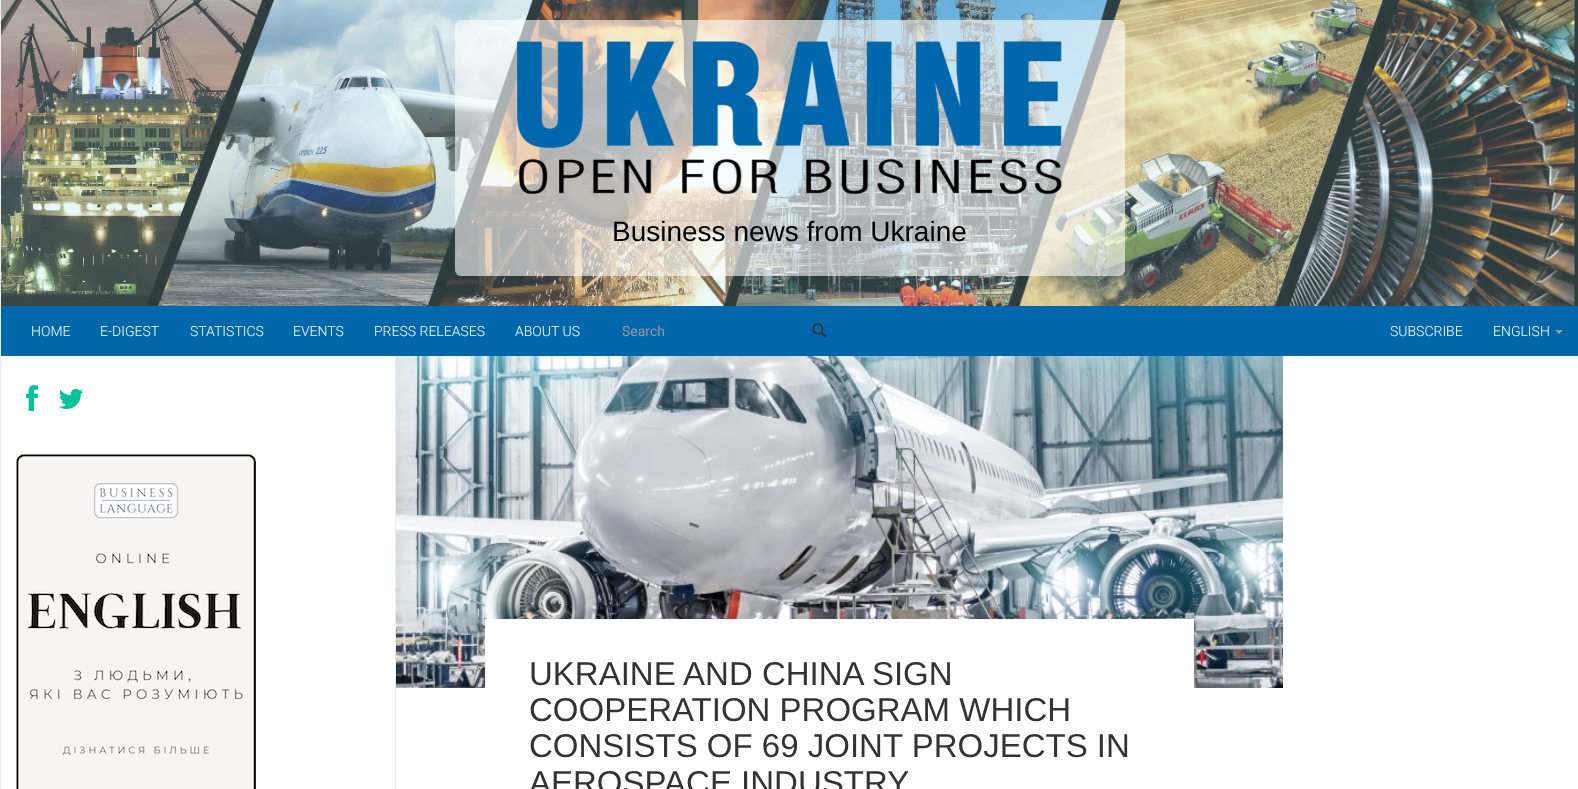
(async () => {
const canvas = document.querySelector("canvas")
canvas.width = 1578
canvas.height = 789
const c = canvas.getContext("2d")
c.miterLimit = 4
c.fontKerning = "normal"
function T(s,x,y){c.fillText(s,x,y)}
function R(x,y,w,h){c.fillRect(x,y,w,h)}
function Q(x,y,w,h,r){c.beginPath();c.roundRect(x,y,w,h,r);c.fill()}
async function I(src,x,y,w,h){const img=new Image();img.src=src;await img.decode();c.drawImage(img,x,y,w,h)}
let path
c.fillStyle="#fff"
R(0,0,1578,789)
c.fillStyle="#eee"
R(0,0,1,789)
await I("1.png",1,0,1577,306)
c.fillStyle="#ffffff99"
Q(455,20,670,256,6)
await I("2.png",516,41,546,153)
c.font="28px Liberation Sans"
c.fillStyle="#000"
T("Business news from Ukraine",612,241)
c.fillStyle="#0067ab"
R(1,306,1577,50)
c.font="300 14px Roboto"
c.fillStyle="#fff"
T("HOME",31,336)
T("E-DIGEST",100,336)
T("STATISTICS",190,336)
T("EVENTS",293,336)
T("PRESS RELEASES",374,336)
T("ABOUT US",515,336)
c.font="14px Roboto"
c.fillStyle="#999"
T("Search",622,336)
await I("3.png",812,323,15,15)
c.font="300 14px Roboto"
c.fillStyle="#fff"
T("SUBSCRIBE",1390,336)
T("ENGLISH",1493,336)
c.fillStyle="#999"
path = new Path2D("M1555 330h8l-4 4z")
c.fill(path)
await I("4.png",26,385,12,26)
await I("5.png",58,389,26,20)
await I("6.png",16,454,240,335)
c.fillStyle="#eee"
R(395,356,1,433)
await I("7.png",396,356,887,332)
c.fillStyle="#fff"
R(485,619,709,69)
c.font="33px Liberation Sans"
c.fillStyle="#333"
T("UKRAINE AND CHINA SIGN",529,685)
T("COOPERATION PROGRAM WHICH",529,721)
T("CONSISTS OF 69 JOINT PROJECTS IN",529,757)
T("AEROSPACE INDUSTRY",529,794)
})()
